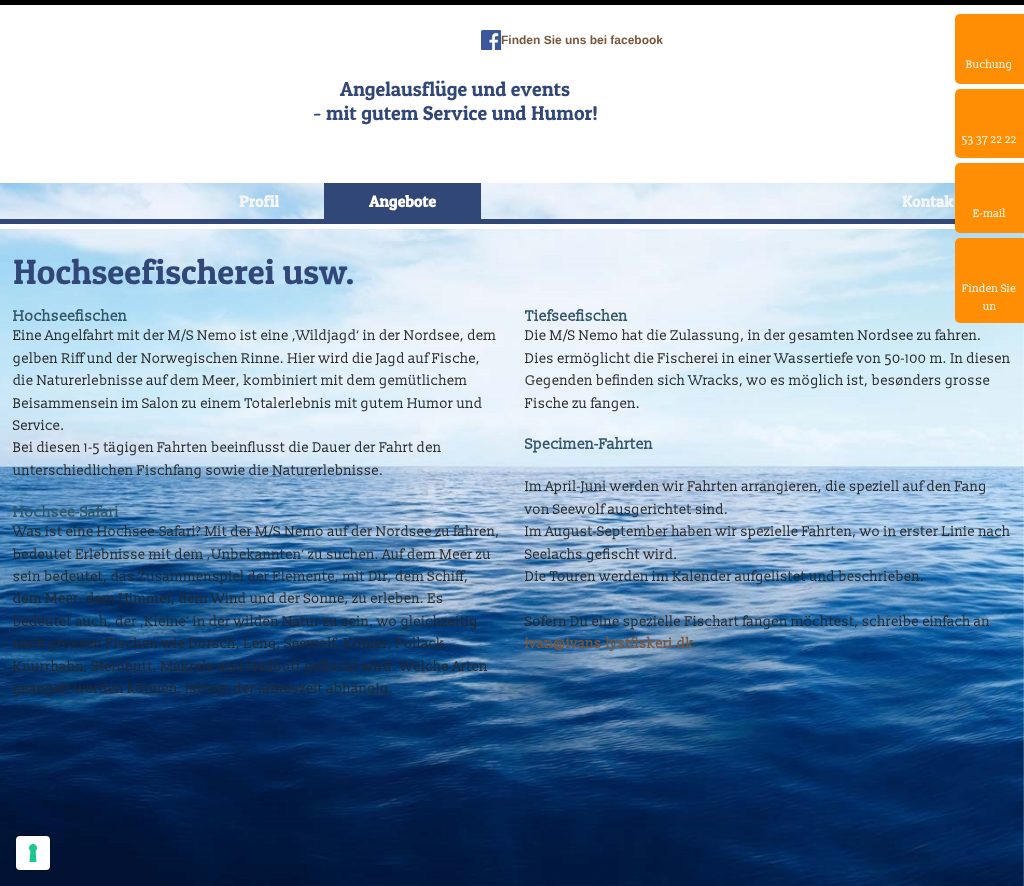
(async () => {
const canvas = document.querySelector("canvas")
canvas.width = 1024
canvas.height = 886
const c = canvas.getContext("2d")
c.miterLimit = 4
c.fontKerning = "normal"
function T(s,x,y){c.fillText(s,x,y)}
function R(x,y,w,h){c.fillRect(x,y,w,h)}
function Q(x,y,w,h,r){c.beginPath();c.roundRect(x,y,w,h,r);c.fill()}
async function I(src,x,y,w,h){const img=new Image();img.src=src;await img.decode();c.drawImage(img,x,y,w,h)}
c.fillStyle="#fff"
R(0,0,1024,886)
await I("1.png",0,183,1024,703)
c.fillStyle="#000"
R(0,0,1024,5)
await I("2.png",481,30,20,20)
c.font="bold 12px Liberation Sans"
c.fillStyle="#7a563a"
T("Finden Sie uns bei facebook",501,44)
c.font="20px Patua One"
c.fillStyle="#314777"
T("Angelausflüge und events",340,96)
T("- mit gutem Service und Humor!",313,120)
c.fillStyle="#ff8e05"
c.beginPath()
c.roundRect(955,14,69,70,[5,0,0,5])
c.fill()
c.font="11px 'Slabo 13px'"
c.fillStyle="#fff"
T("Buchung",966,68)
c.fillStyle="#ff8e05"
c.beginPath()
c.roundRect(955,89,69,69,[5,0,0,5])
c.fill()
c.fillStyle="#fff"
T("53 37 22 22",962,143)
R(0,224,956,5)
c.fillStyle="#ff8e05"
c.beginPath()
c.roundRect(955,163,69,70,[5,0,0,5])
c.fill()
c.fillStyle="#fff"
T("E-mail",973,217)
c.fillStyle="#ff8e05"
c.beginPath()
c.roundRect(955,238,69,85,[5,0,0,5])
c.fill()
c.fillStyle="#fff"
T("Finden Sie",962,292)
T("un",983,310)
c.fillStyle="#314777"
R(0,219,955,5)
c.font="bold 16px Patua One"
c.fillStyle="#f5f5f5"
T("Profil",239,207)
c.fillStyle="#314777"
R(324,183,157,36)
c.fillStyle="#fff"
T("Angebote",369,207)
c.fillStyle="#f5f5f5"
T("Kontak",902,207)
c.font="35px Patua One"
c.fillStyle="#314777"
T("Hochseefischerei usw.",13,284)
c.font="bold 15px 'Slabo 13px'"
c.fillStyle="#335768"
T("Hochseefischen",13,321)
c.font="14px 'Slabo 13px'"
c.fillStyle="#282828"
T("Eine Angelfahrt mit der M/S Nemo ist eine ‚Wildjagd‘ in der Nordsee, dem",13,340)
T("gelben Riff und der Norwegischen Rinne. Hier wird die Jagd auf Fische,",13,363)
T("die Naturerlebnisse auf dem Meer, kombiniert mit dem gemütlichem",13,385)
T("Beisammensein im Salon zu einem Totalerlebnis mit gutem Humor und",13,408)
T("Service.",13,430)
T("Bei diesen 1-5 tägigen Fahrten beeinflusst die Dauer der Fahrt den",13,452)
T("unterschiedlichen Fischfang sowie die Naturerlebnisse.",13,475)
c.font="bold 15px 'Slabo 13px'"
c.fillStyle="#335768"
T("Hochsee-Safari",13,517)
c.font="14px 'Slabo 13px'"
c.fillStyle="#282828"
T("Was ist eine Hochsee-Safari? Mit der M/S Nemo auf der Nordsee zu fahren,",13,536)
T("bedeutet Erlebnisse mit dem ‚Unbekannten‘ zu suchen. Auf dem Meer zu",13,559)
T("sein bedeutet, das Zusammenspiel der Elemente, mit Dir, dem Schiff,",13,581)
T("dem Meer, dem Himmel, dem Wind und der Sonne, zu erleben. Es",13,603)
T("bedeutet auch, der ‚Kleine‘ in der wilden Natur zu sein, wo gleichzeitig",13,626)
T("nach grossen Fischen wie Dorsch, Leng, Seewolf, Köhler, Pollack,",13,648)
T("Knurrhahn, Steinbutt, Makrele und Heilbutt gefischt wird. Welche Arten",13,671)
T("geangelt werden können, ist von der Jahreszeit abhängig.",13,693)
c.font="bold 15px 'Slabo 13px'"
c.fillStyle="#335768"
T("Tiefseefischen",525,321)
c.font="14px 'Slabo 13px'"
c.fillStyle="#282828"
T("Die M/S Nemo hat die Zulassung, in der gesamten Nordsee zu fahren.",525,340)
T("Dies ermöglicht die Fischerei in einer Wassertiefe von 50-100 m. In diesen",525,363)
T("Gegenden befinden sich Wracks, wo es möglich ist, besønders grosse",525,385)
T("Fische zu fangen.",525,408)
c.font="bold 15px 'Slabo 13px'"
c.fillStyle="#335768"
T("Specimen-Fahrten",525,449)
c.font="14px 'Slabo 13px'"
c.fillStyle="#282828"
T("Im April-Juni werden wir Fahrten arrangieren, die speziell auf den Fang",525,491)
T("von Seewolf ausgerichtet sind.",525,514)
T("Im August-September haben wir spezielle Fahrten, wo in erster Linie nach",525,536)
T("Seelachs gefischt wird.",525,559)
T("Die Touren werden im Kalender aufgelistet und beschrieben.",525,581)
T("Sofern Du eine spezielle Fischart fangen möchtest, schreibe einfach an",525,626)
c.font="bold 14px 'Slabo 13px'"
c.fillStyle="#7a563a"
T("ivan@ivans-lystfiskeri.dk",525,648)
c.beginPath()
c.roundRect(15.5,835.5,35,35,4.5)
c.strokeStyle="#00000026"
c.stroke()
c.fillStyle="#fff"
Q(16,836,34,34,4)
await I("3.png",29,844,8,18)
})()
